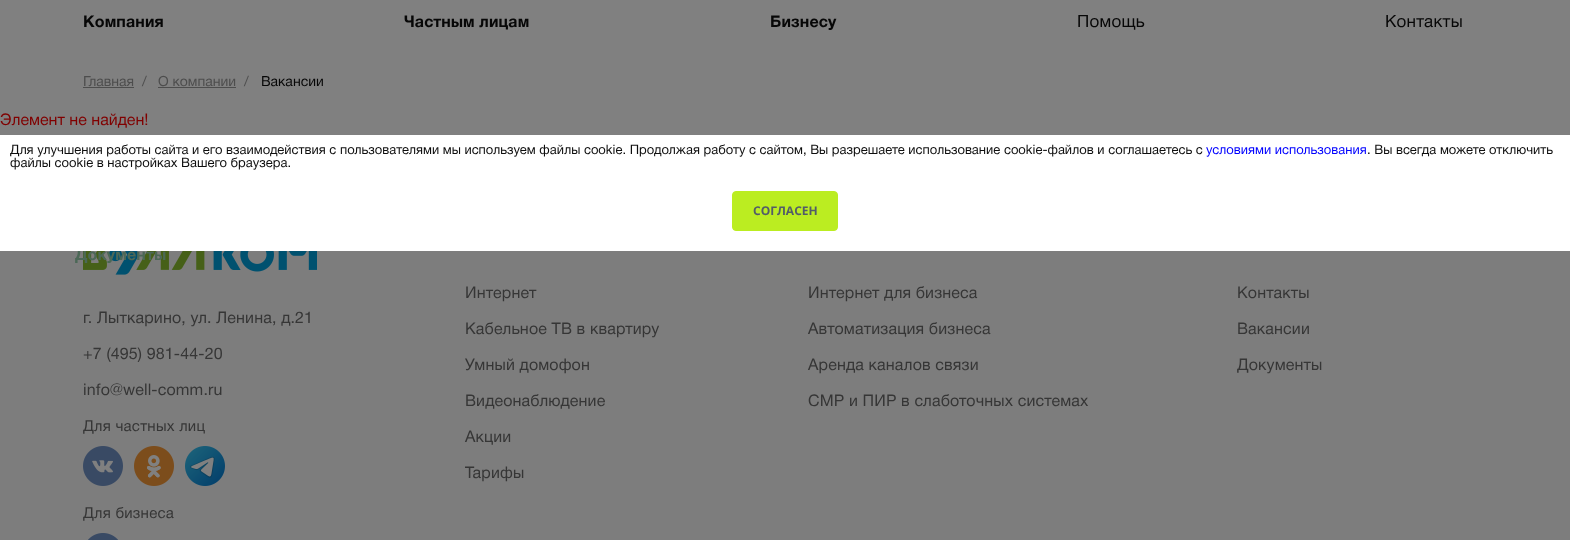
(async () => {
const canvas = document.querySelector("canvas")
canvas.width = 1570
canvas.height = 540
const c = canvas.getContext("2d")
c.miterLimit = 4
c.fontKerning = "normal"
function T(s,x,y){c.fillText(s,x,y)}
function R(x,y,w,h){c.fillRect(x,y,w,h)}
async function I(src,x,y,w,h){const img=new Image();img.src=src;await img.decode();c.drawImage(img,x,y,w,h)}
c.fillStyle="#808080"
R(0,0,1570,540)
c.letterSpacing="0.15px"
c.font="bold 16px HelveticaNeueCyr"
c.fillStyle="#070707"
T("Компания",83,27)
c.fillStyle="#7d7d7d"
R(0,251,1570,289)
await I("1.png",83,251,234,24)
c.fillStyle="#4c6857"
T("Документы",75,260)
c.fillStyle="#070707"
T("Частным лицам",404,27)
T("Бизнесу",770,27)
c.letterSpacing="0.25px"
c.font="17px HelveticaNeueCyr"
T("Помощь",1077,27)
T("Контакты",1385,27)
c.letterSpacing="0px"
c.font="14px HelveticaNeueCyr"
c.fillStyle="#4d4d4d"
T("Главная",83,86)
R(83,87,51,1)
T("/",142,86)
T("О компании",158,86)
R(158,87,78,1)
T("/",244,86)
c.fillStyle="#070707"
T("Вакансии",261,86)
c.font="16px HelveticaNeueCyr"
c.fillStyle="#800000"
T("Элемент не найден!",0,125)
c.letterSpacing="0.15px"
c.fillStyle="#363636"
T("г. Лыткарино, ул. Ленина, д.21",83,323)
T("+7 (495) 981-44-20",83,359)
T("info@well-comm.ru",83,395)
c.letterSpacing="0.25px"
c.font="15px HelveticaNeueCyr"
T("Для частных лиц",83,431)
await I("2.png",83,446,40,40)
await I("3.png",134,446,40,40)
await I("4.png",185,446,40,40)
T("Для бизнеса",83,518)
await I("5.png",88,533,30,7)
c.letterSpacing="0.15px"
c.font="16px HelveticaNeueCyr"
T("Интернет",465,298)
T("Кабельное ТВ в квартиру",465,334)
T("Умный домофон",465,370)
T("Видеонаблюдение",465,406)
T("Акции",465,442)
T("Тарифы",465,478)
T("Интернет для бизнеса",808,298)
T("Автоматизация бизнеса",808,334)
T("Аренда каналов связи",808,370)
T("СМР и ПИР в слаботочных системах",808,406)
T("Контакты",1237,298)
T("Вакансии",1237,334)
T("Документы",1237,370)
c.fillStyle="#fff"
R(0,135,1570,116)
c.letterSpacing="0px"
c.font="13px HelveticaNeueCyr"
c.fillStyle="#0e0e0e"
T("Для улучшения работы сайта и его взаимодействия с пользователями мы используем файлы cookie. Продолжая работу с сайтом, Вы разрешаете использование cookie-файлов и соглашаетесь с",10,154)
c.fillStyle="#00f"
T("условиями использования",1206,154)
c.fillStyle="#0e0e0e"
T(". Вы всегда можете отключить",1367,154)
T("файлы cookie в настройках Вашего браузера.",10,167)
c.fillStyle="#bbed21"
c.beginPath()
c.roundRect(732.5,191.5,105,39,3.5)
c.fill()
c.strokeStyle="#bbed21"
c.stroke()
c.font="bold 12px Open Sans"
c.fillStyle="#525c69"
T("СОГЛАСЕН",753,215)
})()
